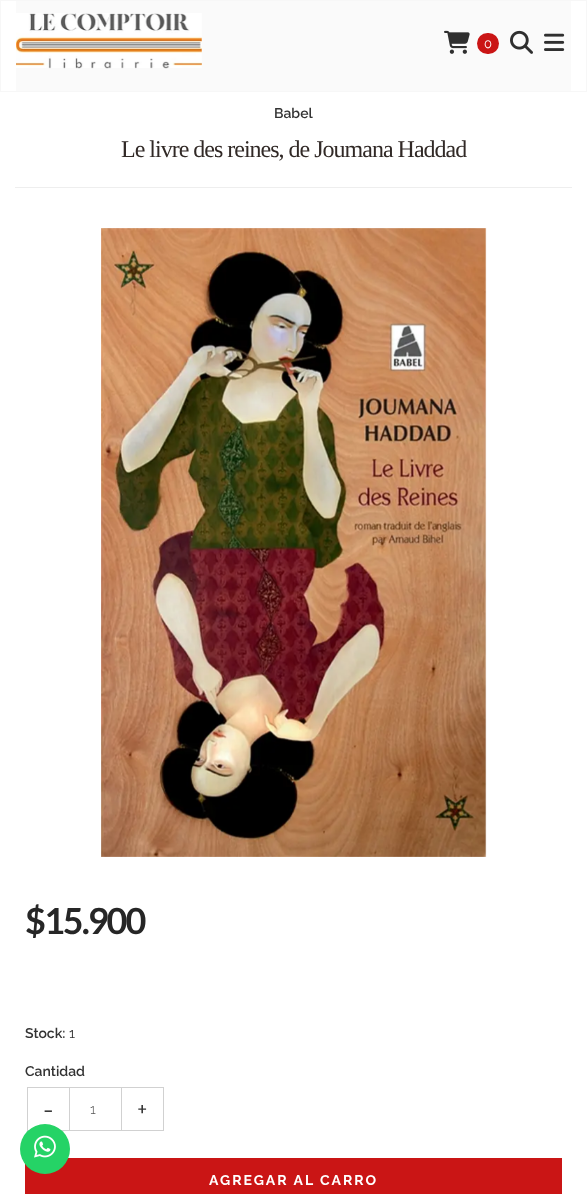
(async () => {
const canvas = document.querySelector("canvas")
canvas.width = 587
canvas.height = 1194
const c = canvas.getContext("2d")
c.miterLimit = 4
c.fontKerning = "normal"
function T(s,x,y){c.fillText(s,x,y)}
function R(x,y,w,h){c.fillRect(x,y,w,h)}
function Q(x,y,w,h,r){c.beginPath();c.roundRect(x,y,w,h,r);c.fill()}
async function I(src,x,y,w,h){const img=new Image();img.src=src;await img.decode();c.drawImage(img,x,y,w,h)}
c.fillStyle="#fff"
R(0,0,587,1194)
c.strokeStyle="#f7f7f7"
c.strokeRect(.5,.5,586,91)
c.fillStyle="#fafafa"
R(16,1,555,90)
await I("1.png",16,13,186,56)
await I("2.png",444,30,26,24)
c.fillStyle="#ca1515"
Q(477,33,22,21,10.5)
c.font="13px Raleway"
c.fillStyle="#fff"
T("0",484,48)
await I("3.png",510,30,23,24)
await I("4.png",544,33,21,18)
c.fillStyle="#eee"
R(15,187,557,1)
c.font="600 14px Raleway"
c.fillStyle="#333"
T("Babel",274,118)
c.letterSpacing="-1px"
c.font="24px Liberation Serif"
c.fillStyle="#312926"
T("Le livre des reines, de Joumana Haddad",121,157)
await I("5.png",101,228,386,629)
c.letterSpacing="-2px"
c.font="bold 36px Lato"
c.fillStyle="#262626"
T("$15.900",25,934)
c.letterSpacing="0px"
c.font="600 14px Raleway"
c.fillStyle="#333"
T("Stock:",25,1038)
c.font="14px Raleway"
T("1",69,1038)
c.font="600 14px Raleway"
T("Cantidad",25,1076)
c.strokeStyle="#d1d1d1"
c.strokeRect(69.5,1087.5,94,43)
c.strokeRect(27.5,1087.5,42,43)
c.font="25px Raleway"
T("-",43,1118)
c.font="300 14px Raleway"
c.fillStyle="#555"
T("1",90,1114)
c.strokeRect(121.5,1087.5,42,43)
c.font="25px Raleway"
c.fillStyle="#333"
T("+",137,1118)
c.fillStyle="#ca1515"
R(25,1158,537,36)
c.letterSpacing="2px"
c.font="bold 14px Raleway"
c.fillStyle="#fff"
T("AGREGAR AL CARRO",209,1185)
c.fillStyle="#25d366"
c.beginPath()
c.arc(45,1149,25,0,7)
c.fill()
await I("6.png",34,1135,22,23)
})()
